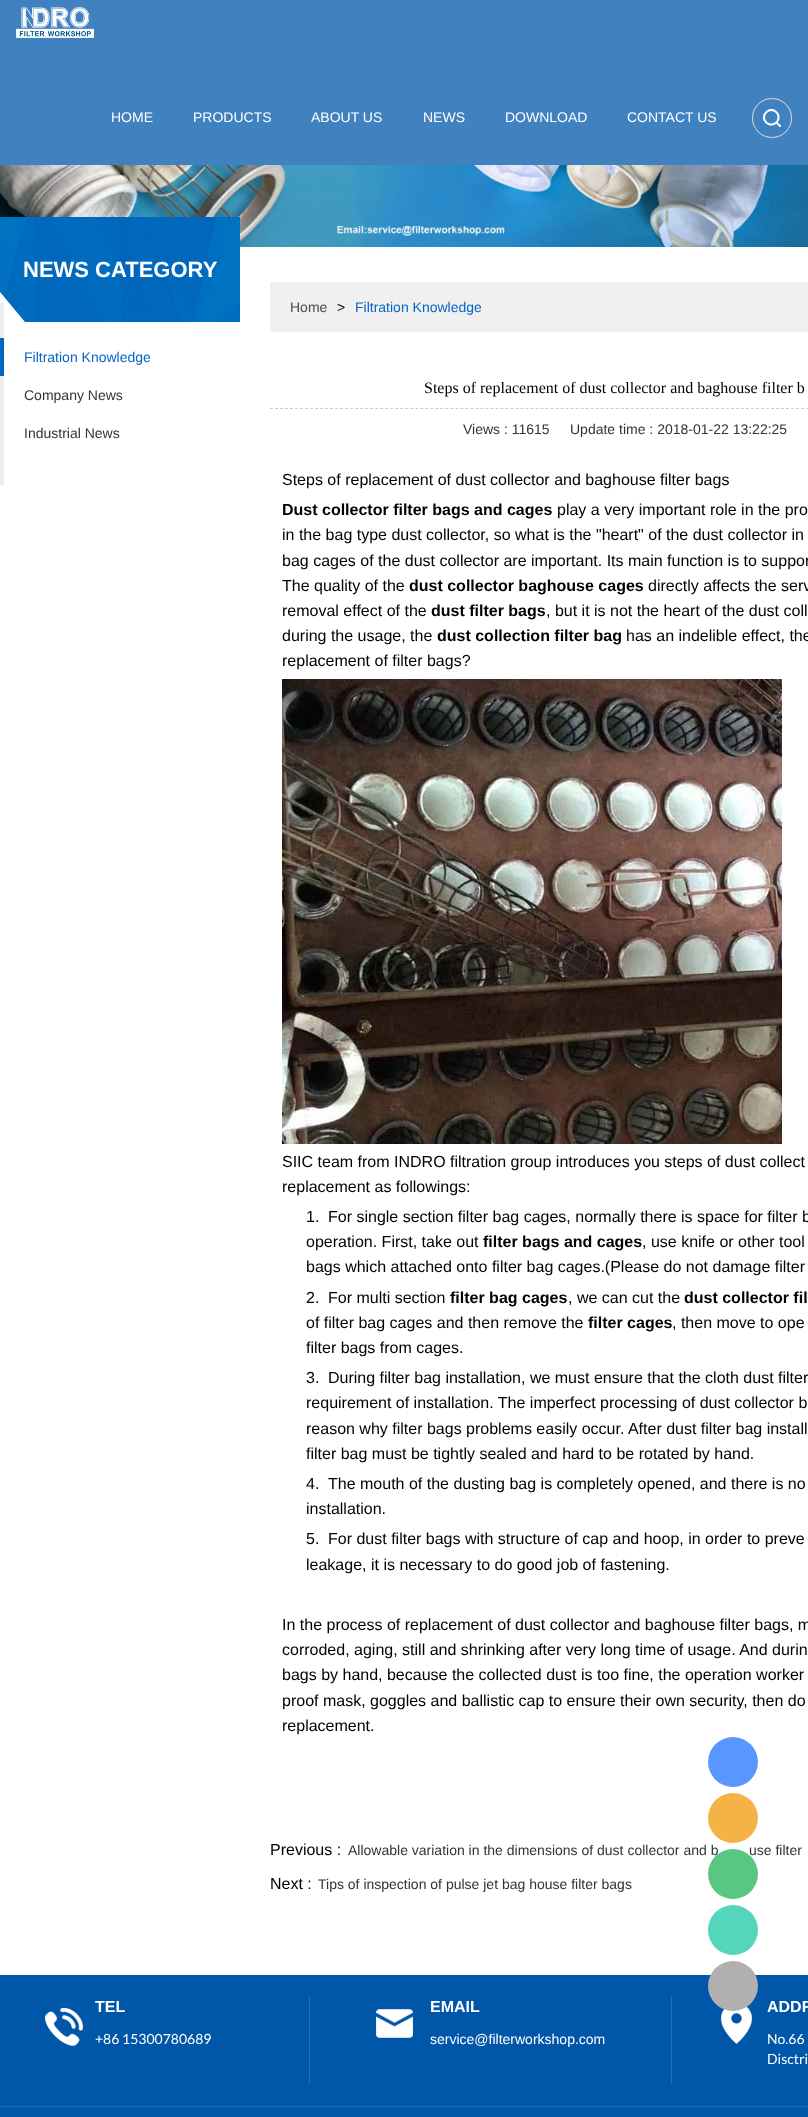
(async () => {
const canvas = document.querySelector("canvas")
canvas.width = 808
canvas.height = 2117
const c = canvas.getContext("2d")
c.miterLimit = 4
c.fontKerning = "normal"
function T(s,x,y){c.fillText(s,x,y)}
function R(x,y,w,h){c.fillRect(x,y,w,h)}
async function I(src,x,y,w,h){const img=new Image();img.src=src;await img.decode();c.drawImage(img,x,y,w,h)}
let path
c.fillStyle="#fff"
R(0,0,808,2117)
c.fillStyle="#4081bf"
R(0,0,808,165)
await I("1.png",16,7,78,31)
c.font="14px Liberation Sans"
c.fillStyle="#fff"
T("HOME",111,122)
T("PRODUCTS",193,122)
T("ABOUT US",311,122)
T("NEWS",423,122)
T("DOWNLOAD",505,122)
T("CONTACT US",627,122)
await I("2.png",763,109,18,18)
c.beginPath()
c.arc(772,118,19.5,0,7)
c.strokeStyle="#95b5d3"
c.stroke()
c.beginPath()
c.arc(772,118,19.5,0,7)
c.strokeStyle="#ccc"
c.stroke()
await I("3.png",763,109,18,18)
await I("4.png",0,165,808,82)
c.fillStyle="#ededed"
R(0,303,4,182)
await I("5.png",0,217,240,105)
c.font="bold 22px Liberation Sans"
c.fillStyle="#fff"
T("NEWS CATEGORY",23,277)
c.fillStyle="#0267c3"
R(0,338,4,38)
c.font="14px Liberation Sans"
c.fillStyle="#0266c3"
T("Filtration Knowledge",24,362)
c.fillStyle="#333"
T("Company News",24,400)
T("Industrial News",24,438)
c.fillStyle="#f0f0f0"
R(270,282,538,50)
c.fillStyle="#4b4b4b"
T("Home",290,312)
c.fillStyle="#000"
T(">",337,312)
c.fillStyle="#0266c3"
T("Filtration Knowledge",355,312)
path = new Path2D("M270 408.5h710")
c.setLineDash([3,2.01])
c.stroke(path)
c.font="16px Liberation Serif"
c.fillStyle="#000"
T("Steps of replacement of dust collector and baghouse filter b",424,393)
c.font="14px Liberation Sans"
c.fillStyle="#333"
T("Views : 11615",463,434)
T("Update time : 2018-01-22 13:22:25",570,434)
c.font="16px Liberation Sans"
c.fillStyle="#000"
T("Steps of replacement of dust collector and baghouse filter bags",282,485)
c.font="bold 16px Liberation Sans"
T("Dust collector filter bags and cages",282,515)
c.font="16px Liberation Sans"
T("play a very important role in the pro",557,515)
T("in the bag type dust collector, so what is the \"heart\" of the dust collector in",282,540)
T("bag cages of the dust collector are important. Its main function is to suppor",282,566)
T("The quality of the",282,591)
c.font="bold 16px Liberation Sans"
T("dust collector baghouse cages",409,591)
c.font="16px Liberation Sans"
T("directly affects the serv",648,591)
T("removal effect of the",282,616)
c.font="bold 16px Liberation Sans"
T("dust filter bags",431,616)
c.font="16px Liberation Sans"
T(", but it is not the heart of the dust coll",546,616)
T("during the usage, the",282,641)
c.font="bold 16px Liberation Sans"
T("dust collection filter bag",437,641)
c.font="16px Liberation Sans"
T("has an indelible effect, the",626,641)
T("replacement of filter bags?",282,666)
await I("6.png",282,679,500,465)
T("SIIC team from INDRO filtration group introduces you steps of dust collect",282,1167)
T("replacement as followings:",282,1192)
T("1.",306,1222)
T("For single section filter bag cages, normally there is space for filter b",328,1222)
T("operation. First, take out",306,1247)
c.font="bold 16px Liberation Sans"
T("filter bags and cages",483,1247)
c.font="16px Liberation Sans"
T(", use knife or other tool",642,1247)
T("bags which attached onto filter bag cages.(Please do not damage filter",306,1272)
T("2.",306,1303)
T("For multi section",328,1303)
c.font="bold 16px Liberation Sans"
T("filter bag cages",450,1303)
c.font="16px Liberation Sans"
T(", we can cut the",568,1303)
c.font="bold 16px Liberation Sans"
T("dust collector fil",684,1303)
c.font="16px Liberation Sans"
T("of filter bag cages and then remove the",306,1328)
c.font="bold 16px Liberation Sans"
T("filter cages",588,1328)
c.font="16px Liberation Sans"
T(", then move to ope",672,1328)
T("filter bags from cages.",306,1353)
T("3.",306,1383)
T("During filter bag installation, we must ensure that the cloth dust filter",328,1383)
T("requirement of installation. The imperfect processing of dust collector b",306,1408)
T("reason why filter bags problems easily occur. After dust filter bag install",306,1434)
T("filter bag must be tightly sealed and hard to be rotated by hand.",306,1459)
T("4.",306,1489)
T("The mouth of the dusting bag is completely opened, and there is no",328,1489)
T("installation.",306,1514)
T("5.",306,1544)
T("For dust filter bags with structure of cap and hoop, in order to preve",328,1544)
T("leakage, it is necessary to do good job of fastening.",306,1570)
T("In the process of replacement of dust collector and baghouse filter bags, m",282,1630)
T("corroded, aging, still and shrinking after very long time of usage. And durin",282,1655)
T("bags by hand, because the collected dust is too fine, the operation worker",282,1680)
T("proof mask, goggles and ballistic cap to ensure their own security, then do",282,1706)
T("replacement.",282,1731)
T("Previous :",270,1855)
c.font="14px Liberation Sans"
c.fillStyle="#333"
T("Allowable variation in the dimensions of dust collector and b",348,1855)
T("use filter",749,1855)
c.font="16px Liberation Sans"
c.fillStyle="#000"
T("Next :",270,1889)
c.font="14px Liberation Sans"
c.fillStyle="#333"
T("Tips of inspection of pulse jet bag house filter bags",318,1889)
c.fillStyle="#5996ff"
c.beginPath()
c.arc(733,1762,25,0,7)
c.fill()
c.fillStyle="#f5b246"
c.beginPath()
c.arc(733,1818,25,0,7)
c.fill()
c.fillStyle="#59c682"
c.beginPath()
c.arc(733,1874,25,0,7)
c.fill()
c.fillStyle="#55d5bb"
c.beginPath()
c.arc(733,1930,25,0,7)
c.fill()
c.fillStyle="#0057a9"
R(0,1975,808,142)
await I("9.png",721,2006,31,38)
c.fillStyle="#b0b0b0"
c.beginPath()
c.arc(733,1986,25,0,7)
c.fill()
await I("7.png",45,2008,38,38)
c.font="bold 16px Liberation Sans"
c.fillStyle="#fff"
T("TEL",95,2012)
c.font="14px Lato"
T("+86 15300780689",95,2044)
await I("8.png",376,2009,37,29)
path = new Path2D("M309.5 1997v87")
c.strokeStyle="#4d8ac3"
c.setLineDash([1,1])
c.stroke(path)
c.font="bold 16px Liberation Sans"
T("EMAIL",430,2012)
c.font="14px Liberation Sans"
T("service@filterworkshop.com",430,2044)
path = new Path2D("M671.5 1997v87")
c.stroke(path)
c.font="bold 16px Liberation Sans"
T("ADDR",767,2012)
c.font="14px Lato"
T("No.66",767,2044)
T("Disctri",767,2064)
c.fillStyle="#1a68b2"
R(0,2106,808,1)
})()
